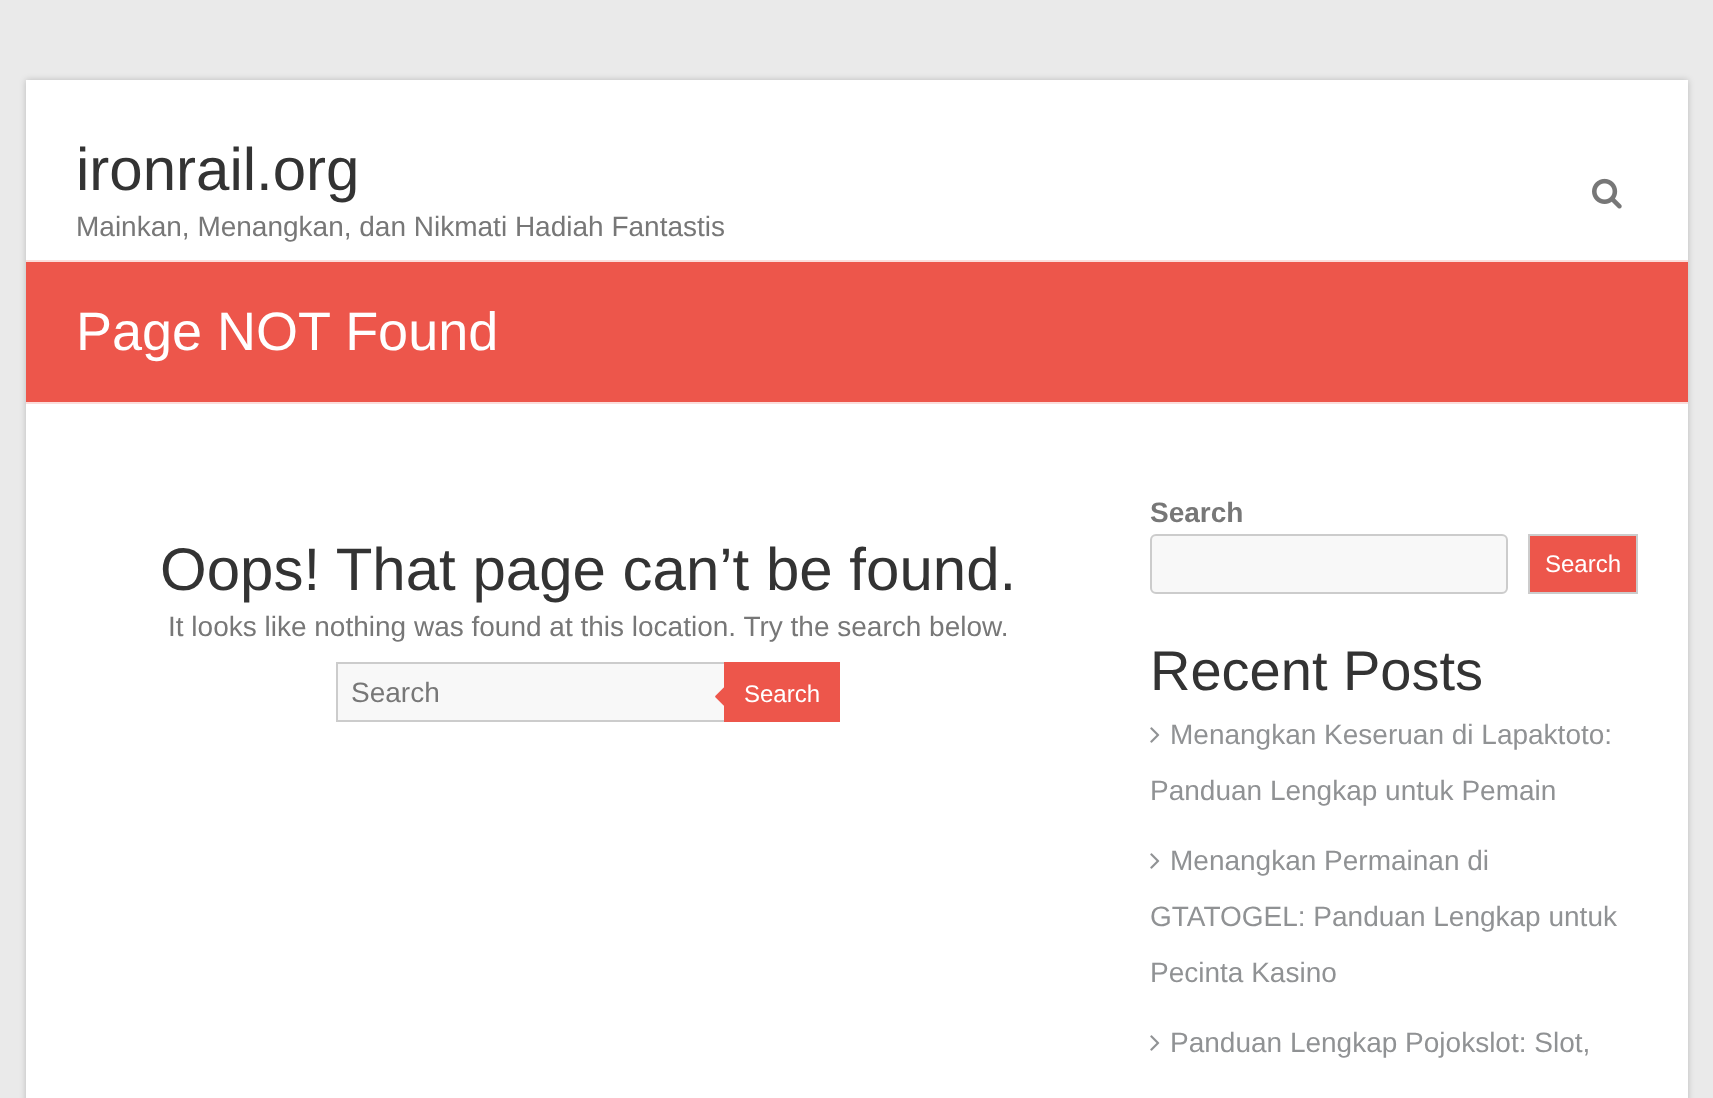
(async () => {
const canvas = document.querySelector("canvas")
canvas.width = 1713
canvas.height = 1098
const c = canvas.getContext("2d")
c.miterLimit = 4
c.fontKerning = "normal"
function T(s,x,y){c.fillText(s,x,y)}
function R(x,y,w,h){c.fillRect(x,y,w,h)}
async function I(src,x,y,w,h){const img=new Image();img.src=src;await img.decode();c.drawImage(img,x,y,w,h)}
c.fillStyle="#eaeaea"
R(0,0,1713,1098)
c.fillStyle="#00000033"
c.filter="blur(3px)"
c.beginPath()
c.rect(26,80,1662,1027)
c.fill()
c.filter="none"
c.fillStyle="#fff"
R(26,80,1662,1018)
c.font="60px Liberation Sans"
c.fillStyle="#333"
T("ironrail.org",76,190)
c.font="28px Liberation Sans"
c.fillStyle="#777"
T("Mainkan, Menangkan, dan Nikmati Hadiah Fantastis",76,236)
await I("1.png",1592,178,30,31)
c.fillStyle="#ed564b"
R(26,262,1662,140)
c.fillStyle="#fbdddb"
R(26,260,1662,2)
R(26,402,1662,2)
c.font="54px Liberation Sans"
c.fillStyle="#fff"
T("Page NOT Found",76,350)
c.font="60px Liberation Sans"
c.fillStyle="#333"
T("Oops! That page can’t be found.",160,590)
c.font="28px Liberation Sans"
c.fillStyle="#777"
T("It looks like nothing was found at this location. Try the search below.",168,636)
c.fillStyle="#f8f8f8"
c.beginPath()
c.rect(337,663,388,58)
c.fill()
c.strokeStyle="#ccc"
c.lineWidth=2
c.stroke()
c.fillStyle="#777"
T("Search",351,702)
c.fillStyle="#ed564b"
R(724,662,116,60)
await I("2.png",715,687,9,19)
c.font="24px Liberation Sans"
c.fillStyle="#fff"
T("Search",744,702)
c.font="bold 28px Liberation Sans"
c.fillStyle="#777"
T("Search",1150,522)
c.fillStyle="#f8f8f8"
c.beginPath()
c.roundRect(1151,535,356,58,5)
c.fill()
c.stroke()
c.fillStyle="#ed564b"
c.beginPath()
c.rect(1529,535,108,58)
c.fill()
c.stroke()
c.font="24px Liberation Sans"
c.fillStyle="#fff"
T("Search",1545,572)
c.font="56px Liberation Sans"
c.fillStyle="#333"
T("Recent Posts",1150,690)
await I("3.png",1150,727,10,16)
c.font="28px Liberation Sans"
c.fillStyle="#909294"
T("Menangkan Keseruan di Lapaktoto:",1170,744)
T("Panduan Lengkap untuk Pemain",1150,800)
await I("3.png",1150,853,10,16)
T("Menangkan Permainan di",1170,870)
T("GTATOGEL: Panduan Lengkap untuk",1150,926)
T("Pecinta Kasino",1150,982)
await I("3.png",1150,1035,10,16)
T("Panduan Lengkap Pojokslot: Slot,",1170,1052)
})()
